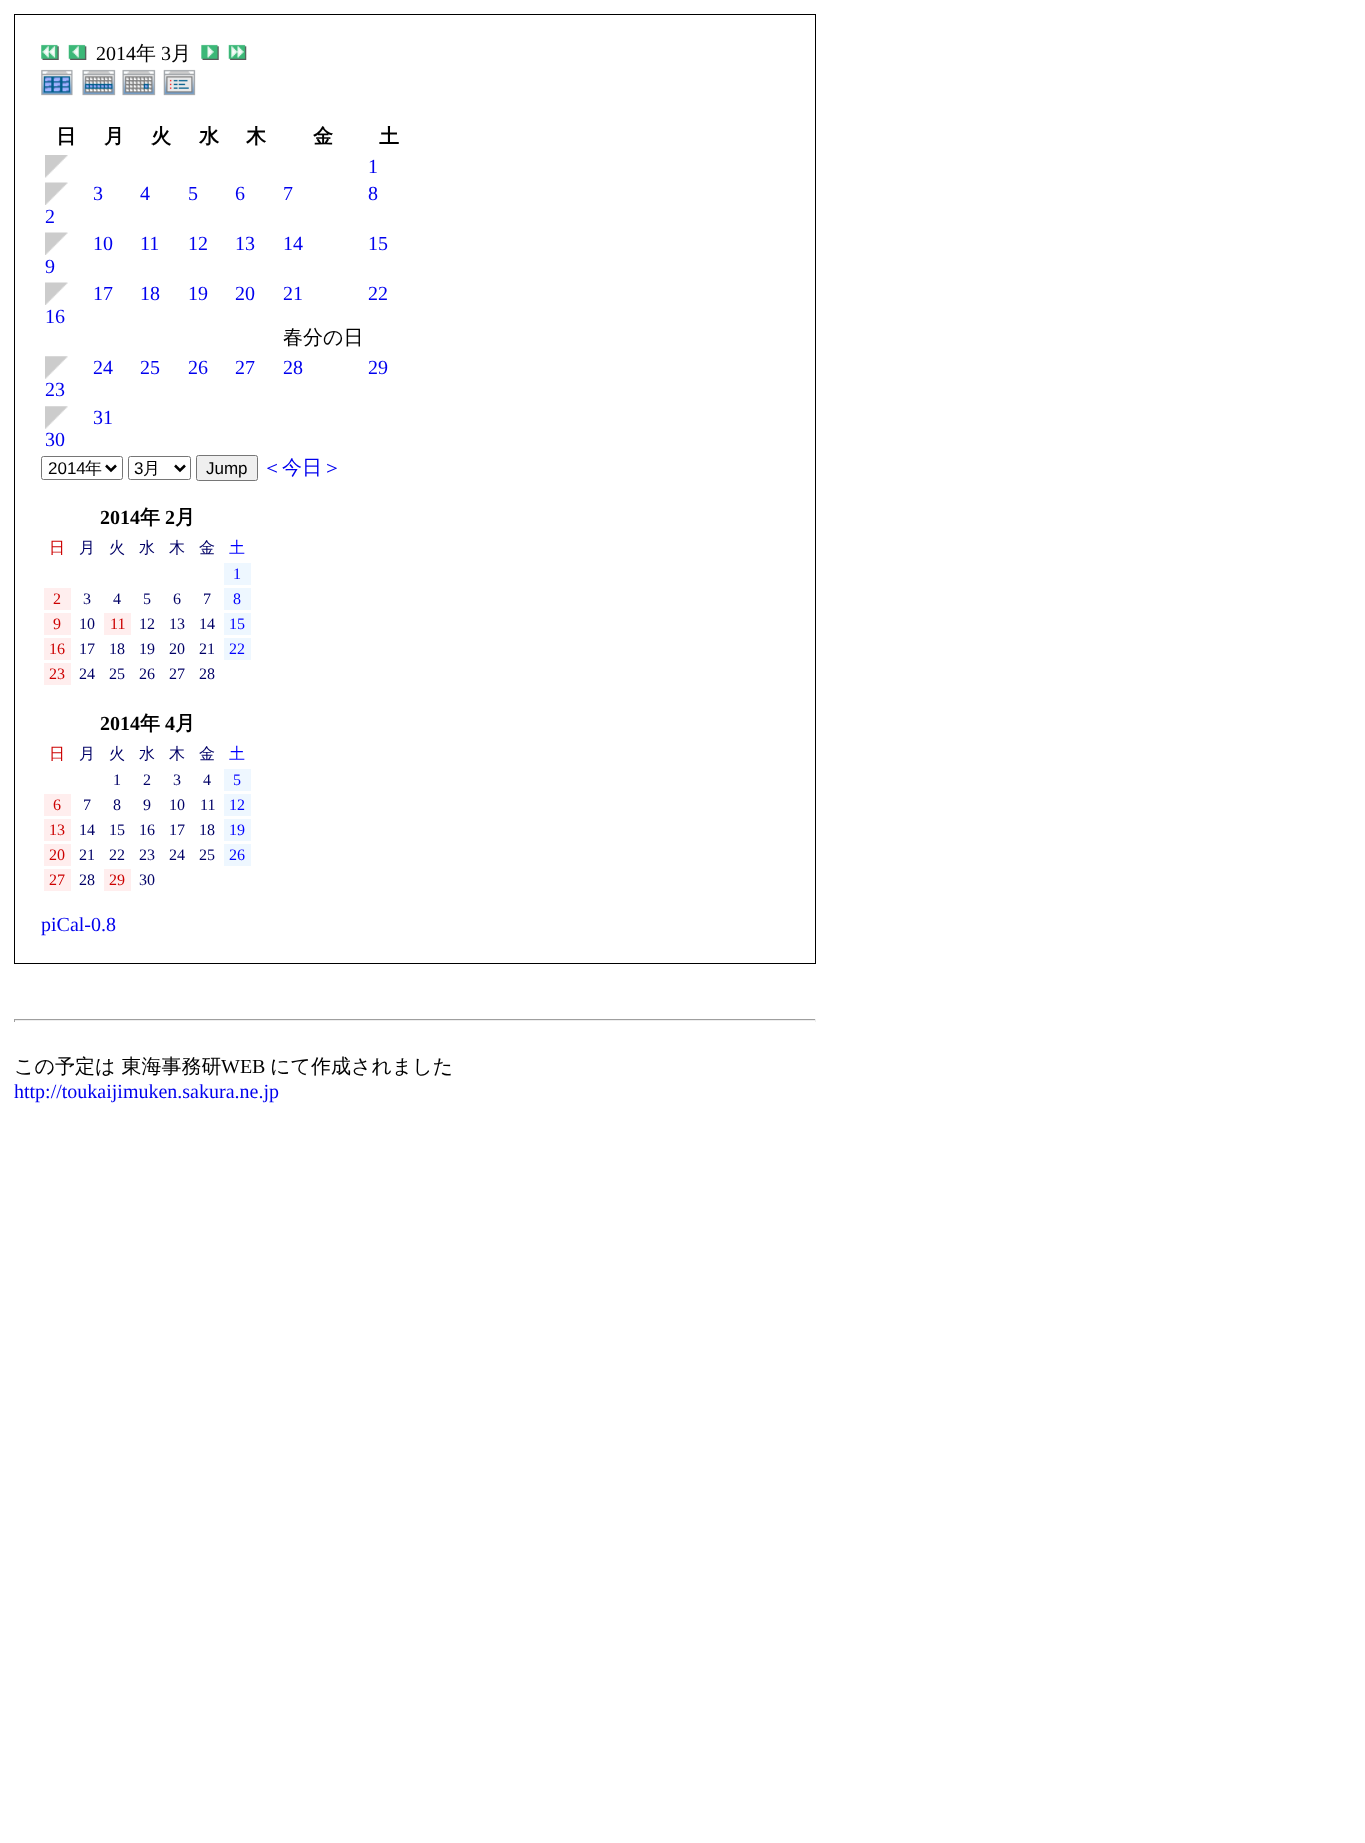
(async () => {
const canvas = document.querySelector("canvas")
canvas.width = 1365
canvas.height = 1843
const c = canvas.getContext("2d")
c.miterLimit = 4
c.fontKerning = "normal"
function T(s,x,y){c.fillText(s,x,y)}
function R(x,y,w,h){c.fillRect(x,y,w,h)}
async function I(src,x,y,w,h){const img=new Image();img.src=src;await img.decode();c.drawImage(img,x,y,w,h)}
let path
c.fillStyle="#fff"
R(0,0,1365,1843)
c.fillStyle="#000"
R(14,14,802,950)
c.fillStyle="#fff"
R(15,15,800,948)
await I("1.png",41,44,18,16)
await I("2.png",68,44,19,16)
c.font="20px Liberation Serif"
c.fillStyle="#000"
T("2014",96,60)
c.font="500 20px WenQuanYi Zen Hei"
T("年",136,60)
c.font="20px Liberation Serif"
T("3",161,60)
c.font="500 20px WenQuanYi Zen Hei"
T("月",171,60)
await I("3.png",201,44,18,16)
await I("4.png",228,44,19,16)
await I("5.png",41,69,32,27)
await I("6.png",82,69,34,27)
await I("7.png",122,69,34,27)
await I("8.png",163,69,33,27)
c.font="bold 20px WenQuanYi Zen Hei"
T("日",56,143)
T("月",104,143)
T("火",151,143)
T("水",199,143)
T("木",246,143)
T("金",313,143)
T("土",379,143)
await I("9.png",45,155,23,23)
c.font="20px Liberation Serif"
c.fillStyle="#00e"
T("1",368,173)
T("3",93,200)
T("4",140,200)
T("5",188,200)
T("6",235,200)
T("7",283,200)
T("8",368,200)
await I("10.png",45,182,23,23)
T("2",45,223)
T("10",93,250)
T("11",140,250)
T("12",188,250)
T("13",235,250)
T("14",283,250)
T("15",368,250)
await I("10.png",45,232,23,23)
T("9",45,273)
T("17",93,300)
T("18",140,300)
T("19",188,300)
T("20",235,300)
T("21",283,300)
c.font="500 20px WenQuanYi Zen Hei"
c.fillStyle="#000"
T("春分の日",283,344)
c.font="20px Liberation Serif"
c.fillStyle="#00e"
T("22",368,300)
await I("11.png",45,282,23,23)
T("16",45,323)
T("24",93,374)
T("25",140,374)
T("26",188,374)
T("27",235,374)
T("28",283,374)
T("29",368,374)
await I("12.png",45,356,23,23)
T("23",45,396)
T("31",93,424)
await I("12.png",45,406,23,23)
T("30",45,446)
c.beginPath()
c.roundRect(41.5,456.5,81,23,2)
c.strokeStyle="#767676"
c.stroke()
path = new Path2D("M106 465.5l5 5l5-5")
c.strokeStyle="#000"
c.lineWidth=2.5
c.stroke(path)
c.font="17px Liberation Sans"
c.fillStyle="#000"
T("2014",48,474)
c.font="500 17px WenQuanYi Zen Hei"
T("年",85,474)
c.beginPath()
c.roundRect(128.5,456.5,62,23,2)
c.strokeStyle="#767676"
c.lineWidth=1
c.stroke()
path = new Path2D("M175 465.5l5 5l5-5")
c.strokeStyle="#000"
c.lineWidth=2.5
c.stroke(path)
c.font="17px Liberation Sans"
T("3",134,474)
c.font="500 17px WenQuanYi Zen Hei"
T("月",143,474)
c.fillStyle="#efefef"
c.beginPath()
c.roundRect(196.5,455.5,61,25,2)
c.fill()
c.strokeStyle="#767676"
c.lineWidth=1
c.stroke()
c.font="17px Liberation Sans"
c.fillStyle="#000"
T("Jump",206,474)
c.font="500 20px WenQuanYi Zen Hei"
c.fillStyle="#00e"
T("＜今日＞",262,474)
c.font="bold 20px Liberation Serif"
c.fillStyle="#000"
T("2014",100,524)
c.font="bold 20px WenQuanYi Zen Hei"
T("年",140,524)
c.font="bold 20px Liberation Serif"
T("2",165,524)
c.font="bold 20px WenQuanYi Zen Hei"
T("月",175,524)
c.font="500 16px WenQuanYi Zen Hei"
c.fillStyle="#c00"
T("日",49,553)
c.fillStyle="#006"
T("月",79,553)
T("火",109,553)
T("水",139,553)
T("木",169,553)
T("金",199,553)
c.fillStyle="#00f"
T("土",229,553)
c.fillStyle="#eef7ff"
R(224,563,27,22)
c.font="16px Liberation Serif"
c.fillStyle="#00f"
T("1",233,579)
c.fillStyle="#fee"
R(44,588,27,22)
c.fillStyle="#c00"
T("2",53,604)
c.fillStyle="#006"
T("3",83,604)
T("4",113,604)
T("5",143,604)
T("6",173,604)
T("7",203,604)
c.fillStyle="#eef7ff"
R(224,588,27,22)
c.fillStyle="#00f"
T("8",233,604)
c.fillStyle="#fee"
R(44,613,27,22)
c.fillStyle="#c00"
T("9",53,629)
c.fillStyle="#006"
T("10",79,629)
c.fillStyle="#fee"
R(104,613,27,22)
c.fillStyle="#c00"
T("11",110,629)
c.fillStyle="#006"
T("12",139,629)
T("13",169,629)
T("14",199,629)
c.fillStyle="#eef7ff"
R(224,613,27,22)
c.fillStyle="#00f"
T("15",229,629)
c.fillStyle="#fee"
R(44,638,27,22)
c.fillStyle="#c00"
T("16",49,654)
c.fillStyle="#006"
T("17",79,654)
T("18",109,654)
T("19",139,654)
T("20",169,654)
T("21",199,654)
c.fillStyle="#eef7ff"
R(224,638,27,22)
c.fillStyle="#00f"
T("22",229,654)
c.fillStyle="#fee"
R(44,663,27,22)
c.fillStyle="#c00"
T("23",49,679)
c.fillStyle="#006"
T("24",79,679)
T("25",109,679)
T("26",139,679)
T("27",169,679)
T("28",199,679)
c.font="bold 20px Liberation Serif"
c.fillStyle="#000"
T("2014",100,730)
c.font="bold 20px WenQuanYi Zen Hei"
T("年",140,730)
c.font="bold 20px Liberation Serif"
T("4",165,730)
c.font="bold 20px WenQuanYi Zen Hei"
T("月",175,730)
c.font="500 16px WenQuanYi Zen Hei"
c.fillStyle="#c00"
T("日",49,759)
c.fillStyle="#006"
T("月",79,759)
T("火",109,759)
T("水",139,759)
T("木",169,759)
T("金",199,759)
c.fillStyle="#00f"
T("土",229,759)
c.font="16px Liberation Serif"
c.fillStyle="#006"
T("1",113,785)
T("2",143,785)
T("3",173,785)
T("4",203,785)
c.fillStyle="#eef7ff"
R(224,769,27,22)
c.fillStyle="#00f"
T("5",233,785)
c.fillStyle="#fee"
R(44,794,27,22)
c.fillStyle="#c00"
T("6",53,810)
c.fillStyle="#006"
T("7",83,810)
T("8",113,810)
T("9",143,810)
T("10",169,810)
T("11",200,810)
c.fillStyle="#eef7ff"
R(224,794,27,22)
c.fillStyle="#00f"
T("12",229,810)
c.fillStyle="#fee"
R(44,819,27,22)
c.fillStyle="#c00"
T("13",49,835)
c.fillStyle="#006"
T("14",79,835)
T("15",109,835)
T("16",139,835)
T("17",169,835)
T("18",199,835)
c.fillStyle="#eef7ff"
R(224,819,27,22)
c.fillStyle="#00f"
T("19",229,835)
c.fillStyle="#fee"
R(44,844,27,22)
c.fillStyle="#c00"
T("20",49,860)
c.fillStyle="#006"
T("21",79,860)
T("22",109,860)
T("23",139,860)
T("24",169,860)
T("25",199,860)
c.fillStyle="#eef7ff"
R(224,844,27,22)
c.fillStyle="#00f"
T("26",229,860)
c.fillStyle="#fee"
R(44,869,27,22)
c.fillStyle="#c00"
T("27",49,885)
c.fillStyle="#006"
T("28",79,885)
c.fillStyle="#fee"
R(104,869,27,22)
c.fillStyle="#c00"
T("29",109,885)
c.fillStyle="#006"
T("30",139,885)
c.font="20px Liberation Serif"
c.fillStyle="#00e"
T("piCal-0.8",41,931)
c.fillStyle="#9f9f9f"
R(14,1019,802,1)
c.fillStyle="#eee"
R(815,1019,1,3)
R(14,1020,802,1)
c.fillStyle="#9f9f9f"
R(14,1019,1,3)
c.font="500 20px WenQuanYi Zen Hei"
c.fillStyle="#000"
T("この予定は 東海事務研",14,1073)
c.font="20px Liberation Serif"
T("WEB",221,1073)
c.font="500 20px WenQuanYi Zen Hei"
T("にて作成されました",270,1073)
c.font="20px Liberation Serif"
c.fillStyle="#00e"
T("http://toukaijimuken.sakura.ne.jp",14,1098)
})()
